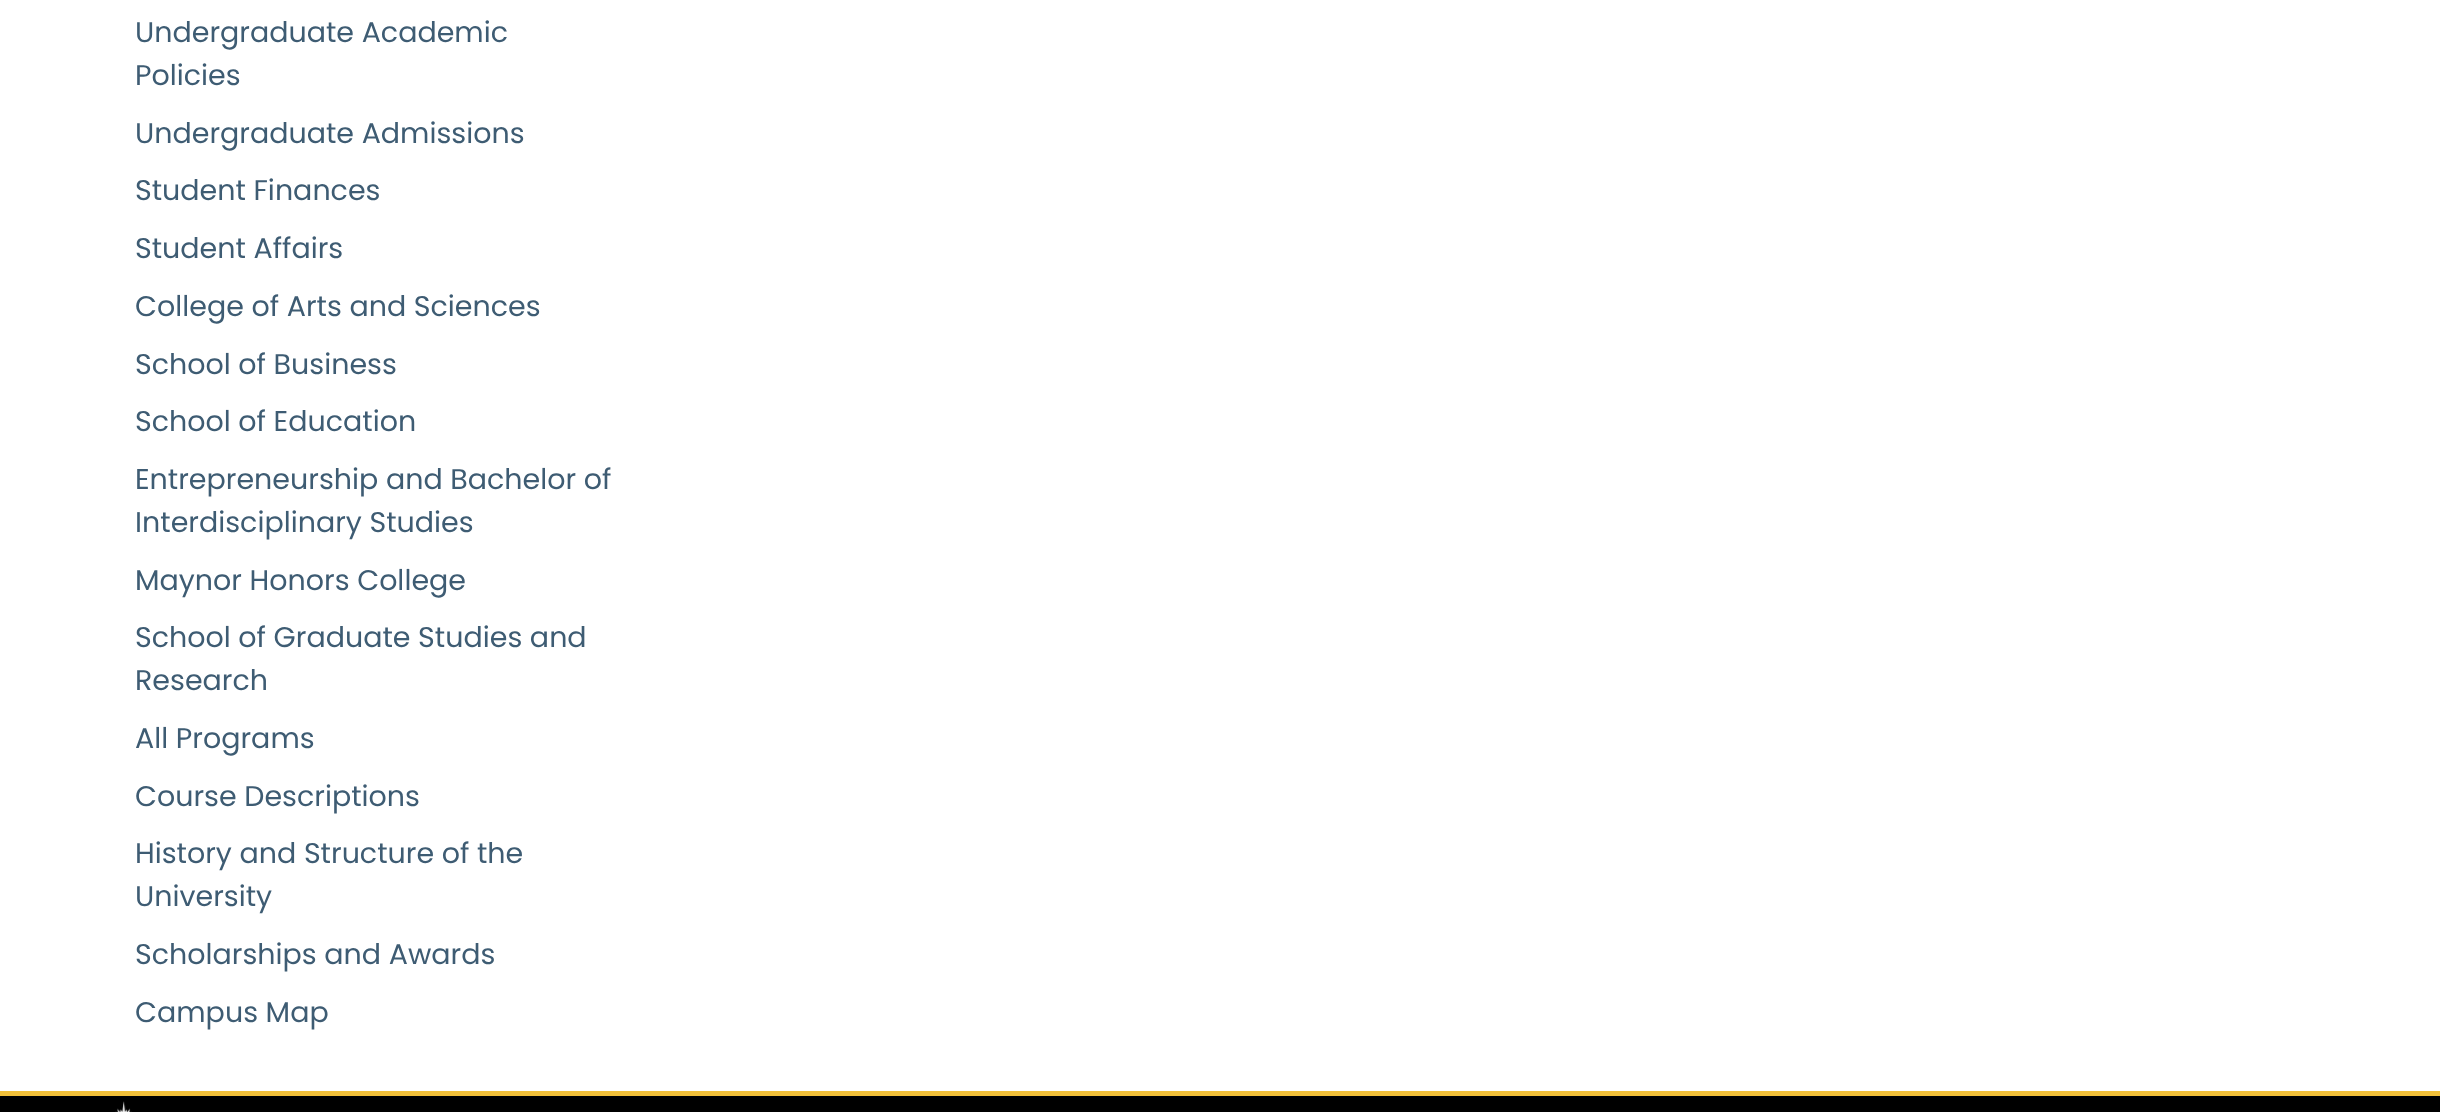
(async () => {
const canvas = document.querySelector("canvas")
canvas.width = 2440
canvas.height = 1112
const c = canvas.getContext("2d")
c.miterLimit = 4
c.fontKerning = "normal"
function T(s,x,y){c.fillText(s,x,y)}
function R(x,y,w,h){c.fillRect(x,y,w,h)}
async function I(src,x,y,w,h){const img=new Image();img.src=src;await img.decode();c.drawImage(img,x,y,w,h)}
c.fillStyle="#fff"
R(0,0,2440,1112)
c.font="28.5px Poppins"
c.fillStyle="#3e5c73"
T("Undergraduate Academic",135,42)
T("Policies",135,85)
T("Undergraduate Admissions",135,143)
T("Student Finances",135,200)
T("Student Affairs",135,258)
T("College of Arts and Sciences",135,316)
T("School of Business",135,374)
T("School of Education",135,431)
T("Entrepreneurship and Bachelor of",135,489)
T("Interdisciplinary Studies",135,532)
T("Maynor Honors College",135,590)
T("School of Graduate Studies and",135,647)
T("Research",135,690)
T("All Programs",135,748)
T("Course Descriptions",135,806)
T("History and Structure of the",135,863)
T("University",135,906)
T("Scholarships and Awards",135,964)
T("Campus Map",135,1022)
c.fillStyle="#000"
R(0,1096,2440,16)
c.fillStyle="#f2c039"
R(0,1091,2440,5)
await I("1.png",115,1101,17,11)
})()
